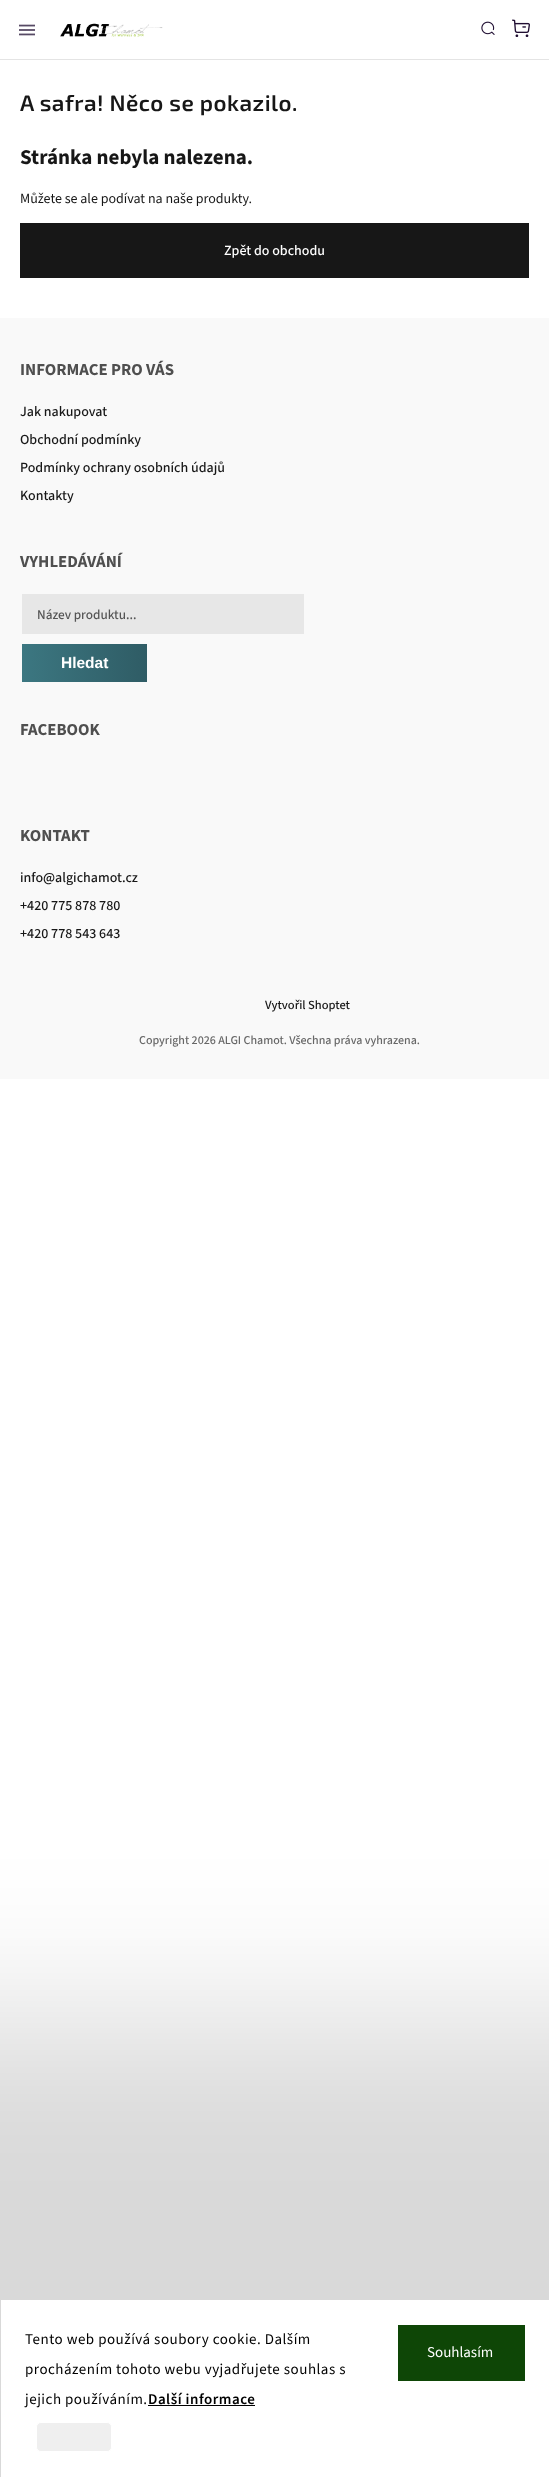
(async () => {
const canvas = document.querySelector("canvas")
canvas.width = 549
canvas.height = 2477
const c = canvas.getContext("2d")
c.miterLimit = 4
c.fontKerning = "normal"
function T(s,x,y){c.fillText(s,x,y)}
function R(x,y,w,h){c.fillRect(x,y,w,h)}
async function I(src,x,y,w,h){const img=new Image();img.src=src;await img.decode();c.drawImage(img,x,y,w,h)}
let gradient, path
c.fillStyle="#fff"
R(0,0,549,2477)
c.fillStyle="#e4e4e4"
R(0,59,549,1)
await I("1.png",19,24,16,12)
await I("2.png",481,21,14,14)
await I("3.png",512,19,18,18)
await I("4.png",60,23,103,14)
c.letterSpacing="0.5px"
c.font="600 22.4px 'Exo 2'"
c.fillStyle="#171717"
T("A safra! Něco se pokazilo.",20,111)
c.letterSpacing="0px"
c.font="bold 21px 'Source Sans 3'"
T("Stránka nebyla nalezena.",20,164)
c.font="14px 'Source Sans 3'"
T("Můžete se ale podívat na naše produkty.",20,203)
R(20,223,509,55)
c.font="500 14px 'Source Sans 3'"
c.fillStyle="#fff"
T("Zpět do obchodu",224,255)
c.fillStyle="#f9f9f9"
R(0,318,549,761)
c.font="bold 16.75px 'Source Sans 3'"
c.fillStyle="#4f4f4f"
T("INFORMACE PRO VÁS",20,375)
c.font="500 14px 'Source Sans 3'"
c.fillStyle="#171717"
T("Jak nakupovat",20,416)
T("Obchodní podmínky",20,444)
T("Podmínky ochrany osobních údajů",20,472)
T("Kontakty",20,500)
c.font="bold 16.75px 'Source Sans 3'"
c.fillStyle="#4f4f4f"
T("VYHLEDÁVÁNÍ",20,567)
c.fillStyle="#e7e7e7"
R(22,594,282,40)
c.font="500 13.25px 'Source Sans 3'"
c.fillStyle="#555"
T("Název produktu...",37,619)
gradient = c.createLinearGradient(22,664,147,662)
gradient.addColorStop(0,"#3c7781")
gradient.addColorStop(1,"#2f5c65")
c.fillStyle = gradient
R(22,644,125,38)
c.font="bold 15.5px Liberation Sans"
c.fillStyle="#fff"
T("Hledat",61,668)
c.font="bold 16.75px 'Source Sans 3'"
c.fillStyle="#4f4f4f"
T("FACEBOOK",20,735)
T("KONTAKT",20,841)
c.font="500 14px 'Source Sans 3'"
c.fillStyle="#171717"
T("info@algichamot.cz",20,882)
T("+420 775 878 780",20,910)
T("+420 778 543 643",20,938)
c.font="500 12.5px 'Source Sans 3'"
T("Vytvořil Shoptet",265,1009)
c.font="500 12px 'Source Sans 3'"
c.fillStyle="#676767"
T("Copyright 2026 ALGI Chamot. Všechna práva vyhrazena.",139,1044)
c.save()
path = new Path2D("M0 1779h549v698h-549zm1 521h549v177h-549z")
c.clip(path,"evenodd")
c.fillStyle="#00000026"
c.filter="blur(80px)"
c.beginPath()
c.rect(-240,2020,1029,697)
c.fill()
c.filter="none"
c.restore()
c.letterSpacing="0.5px"
c.font="15px 'Source Sans 3'"
c.fillStyle="#000"
T("Tento web používá soubory cookie. Dalším",25,2344)
T("procházením tohoto webu vyjadřujete souhlas s",25,2374)
T("jejich používáním.",25,2404)
c.font="600 15px 'Source Sans 3'"
T("Další informace",148,2404)
R(148,2405,107,1)
c.fillStyle="#efefef"
c.beginPath()
c.roundRect(36.5,2422.5,75,29,4.5)
c.fill()
c.strokeStyle="#fff"
c.stroke()
c.fillStyle="#0e4606"
R(398,2325,127,56)
c.letterSpacing="0px"
c.font="15px 'Source Sans 3'"
c.fillStyle="#fff"
T("Souhlasím",427,2357)
})()
